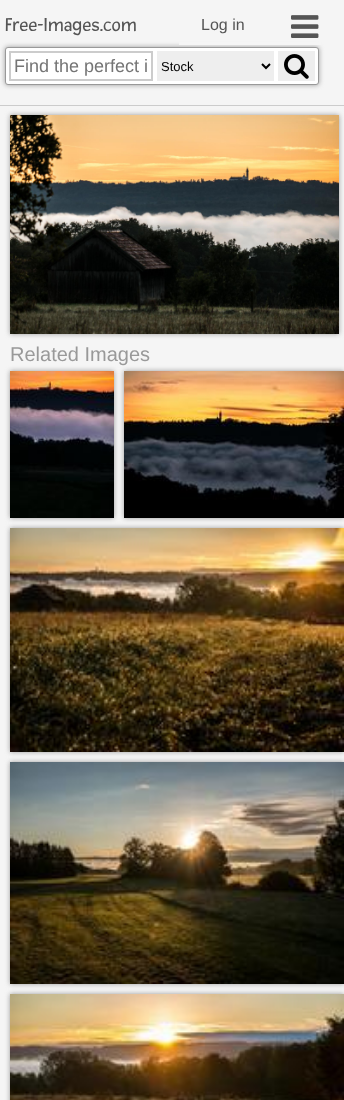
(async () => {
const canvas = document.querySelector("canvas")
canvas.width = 344
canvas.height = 1100
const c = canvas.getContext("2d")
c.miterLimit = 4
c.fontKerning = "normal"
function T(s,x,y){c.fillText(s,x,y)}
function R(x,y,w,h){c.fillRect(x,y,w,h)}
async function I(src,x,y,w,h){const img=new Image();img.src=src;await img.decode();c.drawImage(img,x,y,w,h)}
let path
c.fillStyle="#f5f5f5"
R(0,0,344,1100)
c.fillStyle="#ccc"
R(0,105,344,1)
c.font="20px Fresca"
c.fillStyle="#555"
T("Free-Images.com",5,31)
c.fillStyle="#999"
c.filter="blur(2.5px)"
c.beginPath()
c.roundRect(5,47,314,38,3)
c.fill()
c.filter="none"
c.fillStyle="#fff"
c.beginPath()
c.roundRect(5.5,47.5,313,37,2.5)
c.fill()
c.strokeStyle="#999"
c.stroke()
c.strokeStyle="#ccc"
c.lineWidth=2
c.strokeRect(10,52,142,28)
c.font="18px Liberation Sans"
c.fillStyle="#757575"
T("Find the perfect i",14,72)
c.fillStyle="#eee"
R(157,51,117,30)
path = new Path2D("M262 64l4 4l4-4")
c.strokeStyle="#000"
c.stroke(path)
c.font="13px Liberation Sans"
c.fillStyle="#000"
T("Stock",161,71)
c.fillStyle="#eee"
R(278,51,37,30)
await I("1.png",284,54,25,25)
c.fillStyle="#f5f5f5"
R(179,42,142,3)
c.font="16px Liberation Sans"
c.fillStyle="#555"
T("Log in",201,30)
await I("2.png",291,15,28,23)
c.fillStyle="#999"
c.filter="blur(2.5px)"
c.beginPath()
c.rect(10,115,329,219)
c.fill()
c.filter="none"
await I("3.png",10,115,329,219)
c.font="20px Liberation Sans"
T("Related Images",10,361)
c.filter="blur(2.5px)"
c.beginPath()
c.rect(10,371,104,147)
c.fill()
c.filter="none"
await I("4.png",10,371,104,147)
c.filter="blur(2.5px)"
c.beginPath()
c.rect(124,371,220,147)
c.fill()
c.filter="none"
await I("5.png",124,371,220,147)
c.filter="blur(2.5px)"
c.beginPath()
c.rect(10,528,334,224)
c.fill()
c.filter="none"
await I("6.png",10,528,334,224)
c.filter="blur(2.5px)"
c.beginPath()
c.rect(10,762,334,222)
c.fill()
c.filter="none"
await I("7.png",10,762,334,222)
c.filter="blur(2.5px)"
c.beginPath()
c.rect(10,994,334,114)
c.fill()
c.filter="none"
await I("8.png",10,994,334,106)
})()
